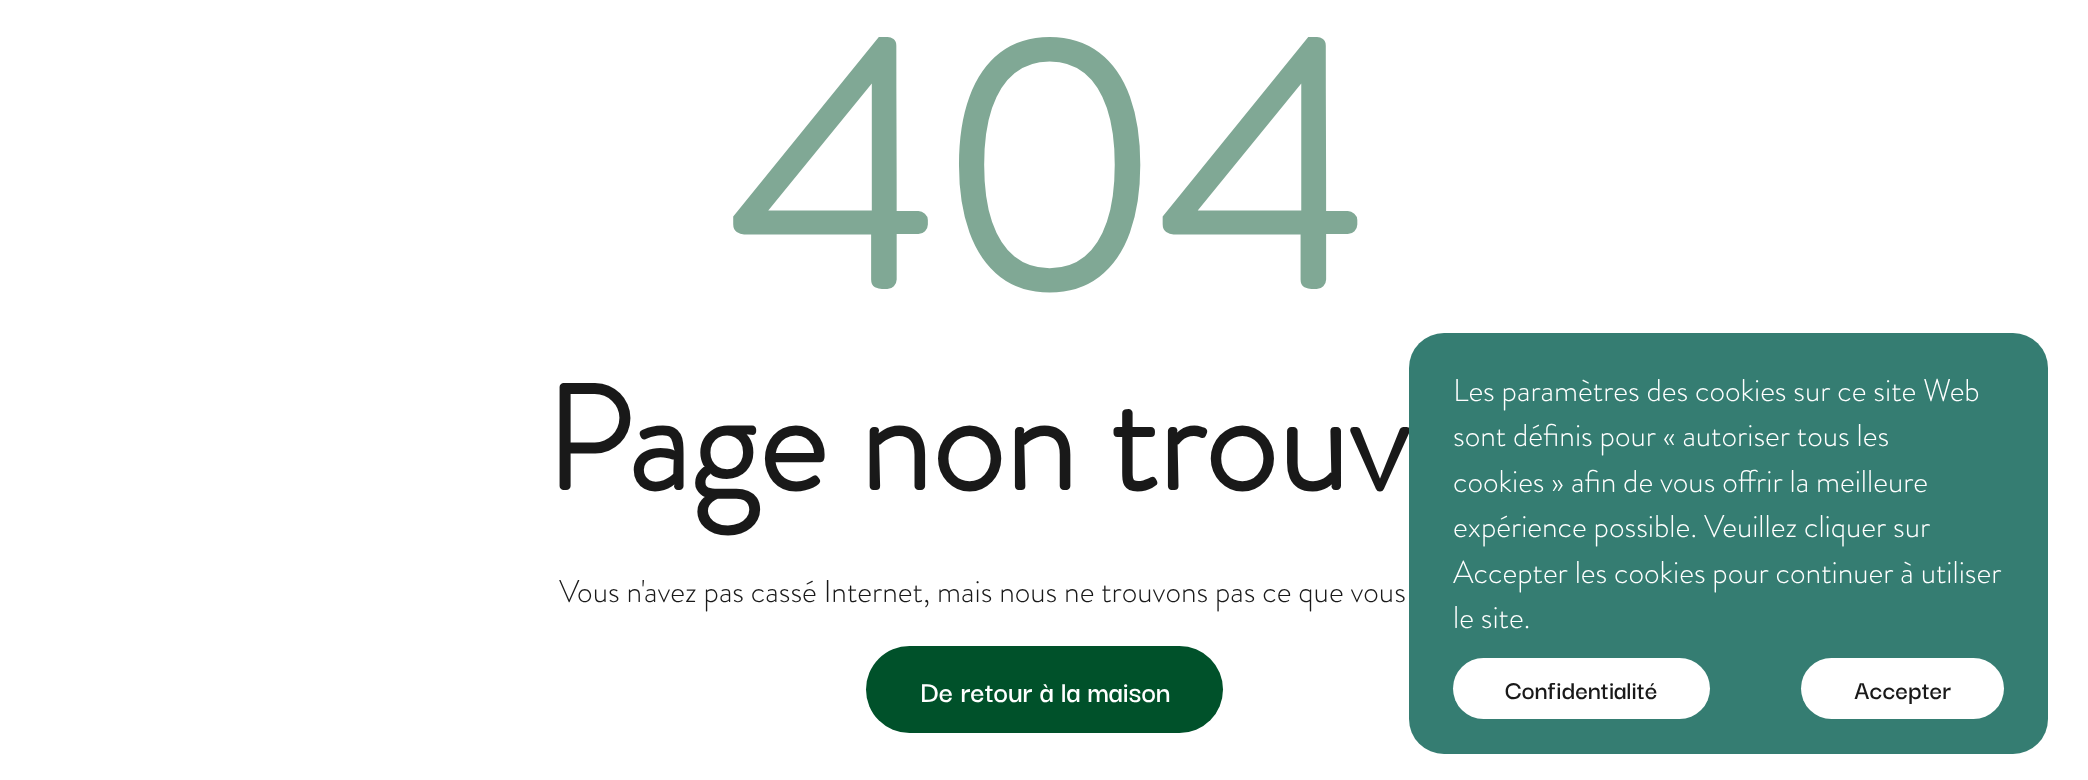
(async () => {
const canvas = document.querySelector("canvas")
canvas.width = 2088
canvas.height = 780
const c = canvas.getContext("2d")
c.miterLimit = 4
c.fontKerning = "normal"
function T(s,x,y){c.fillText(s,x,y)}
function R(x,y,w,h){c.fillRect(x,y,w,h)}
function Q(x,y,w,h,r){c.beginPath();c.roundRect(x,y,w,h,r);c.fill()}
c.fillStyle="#fff"
R(0,0,2088,780)
c.font="bold 350px Brandon Grotesque"
c.fillStyle="#80a895"
T("404",728,289)
c.font="bold 147px Brandon Grotesque"
c.fillStyle="#191919"
T("Page non trouv",544,490)
c.font="300 31.5px Brandon Grotesque"
T("Vous n'avez pas cassé Internet, mais nous ne trouvons pas ce que vous",559,602)
c.fillStyle="#00512a"
Q(866,646,357,87,43.5)
c.font="600 31.5px Darker Grotesque"
c.fillStyle="#fff"
T("De retour à la maison",920,702)
c.fillStyle="#357d72"
Q(1409,333,639,421,35)
c.font="300 31.5px Brandon Grotesque"
c.fillStyle="#fff"
T("Les paramètres des cookies sur ce site Web",1453,401)
T("sont définis pour « autoriser tous les",1453,446)
T("cookies » afin de vous offrir la meilleure",1453,492)
T("expérience possible. Veuillez cliquer sur",1453,537)
T("Accepter les cookies pour continuer à utiliser",1453,583)
T("le site.",1453,628)
Q(1453,658,257,61,30.5)
c.font="600 28px Darker Grotesque"
c.fillStyle="#191919"
T("Confidentialité",1505,699)
c.fillStyle="#fff"
Q(1801,658,203,61,30.5)
c.fillStyle="#191919"
T("Accepter",1854,699)
})()
